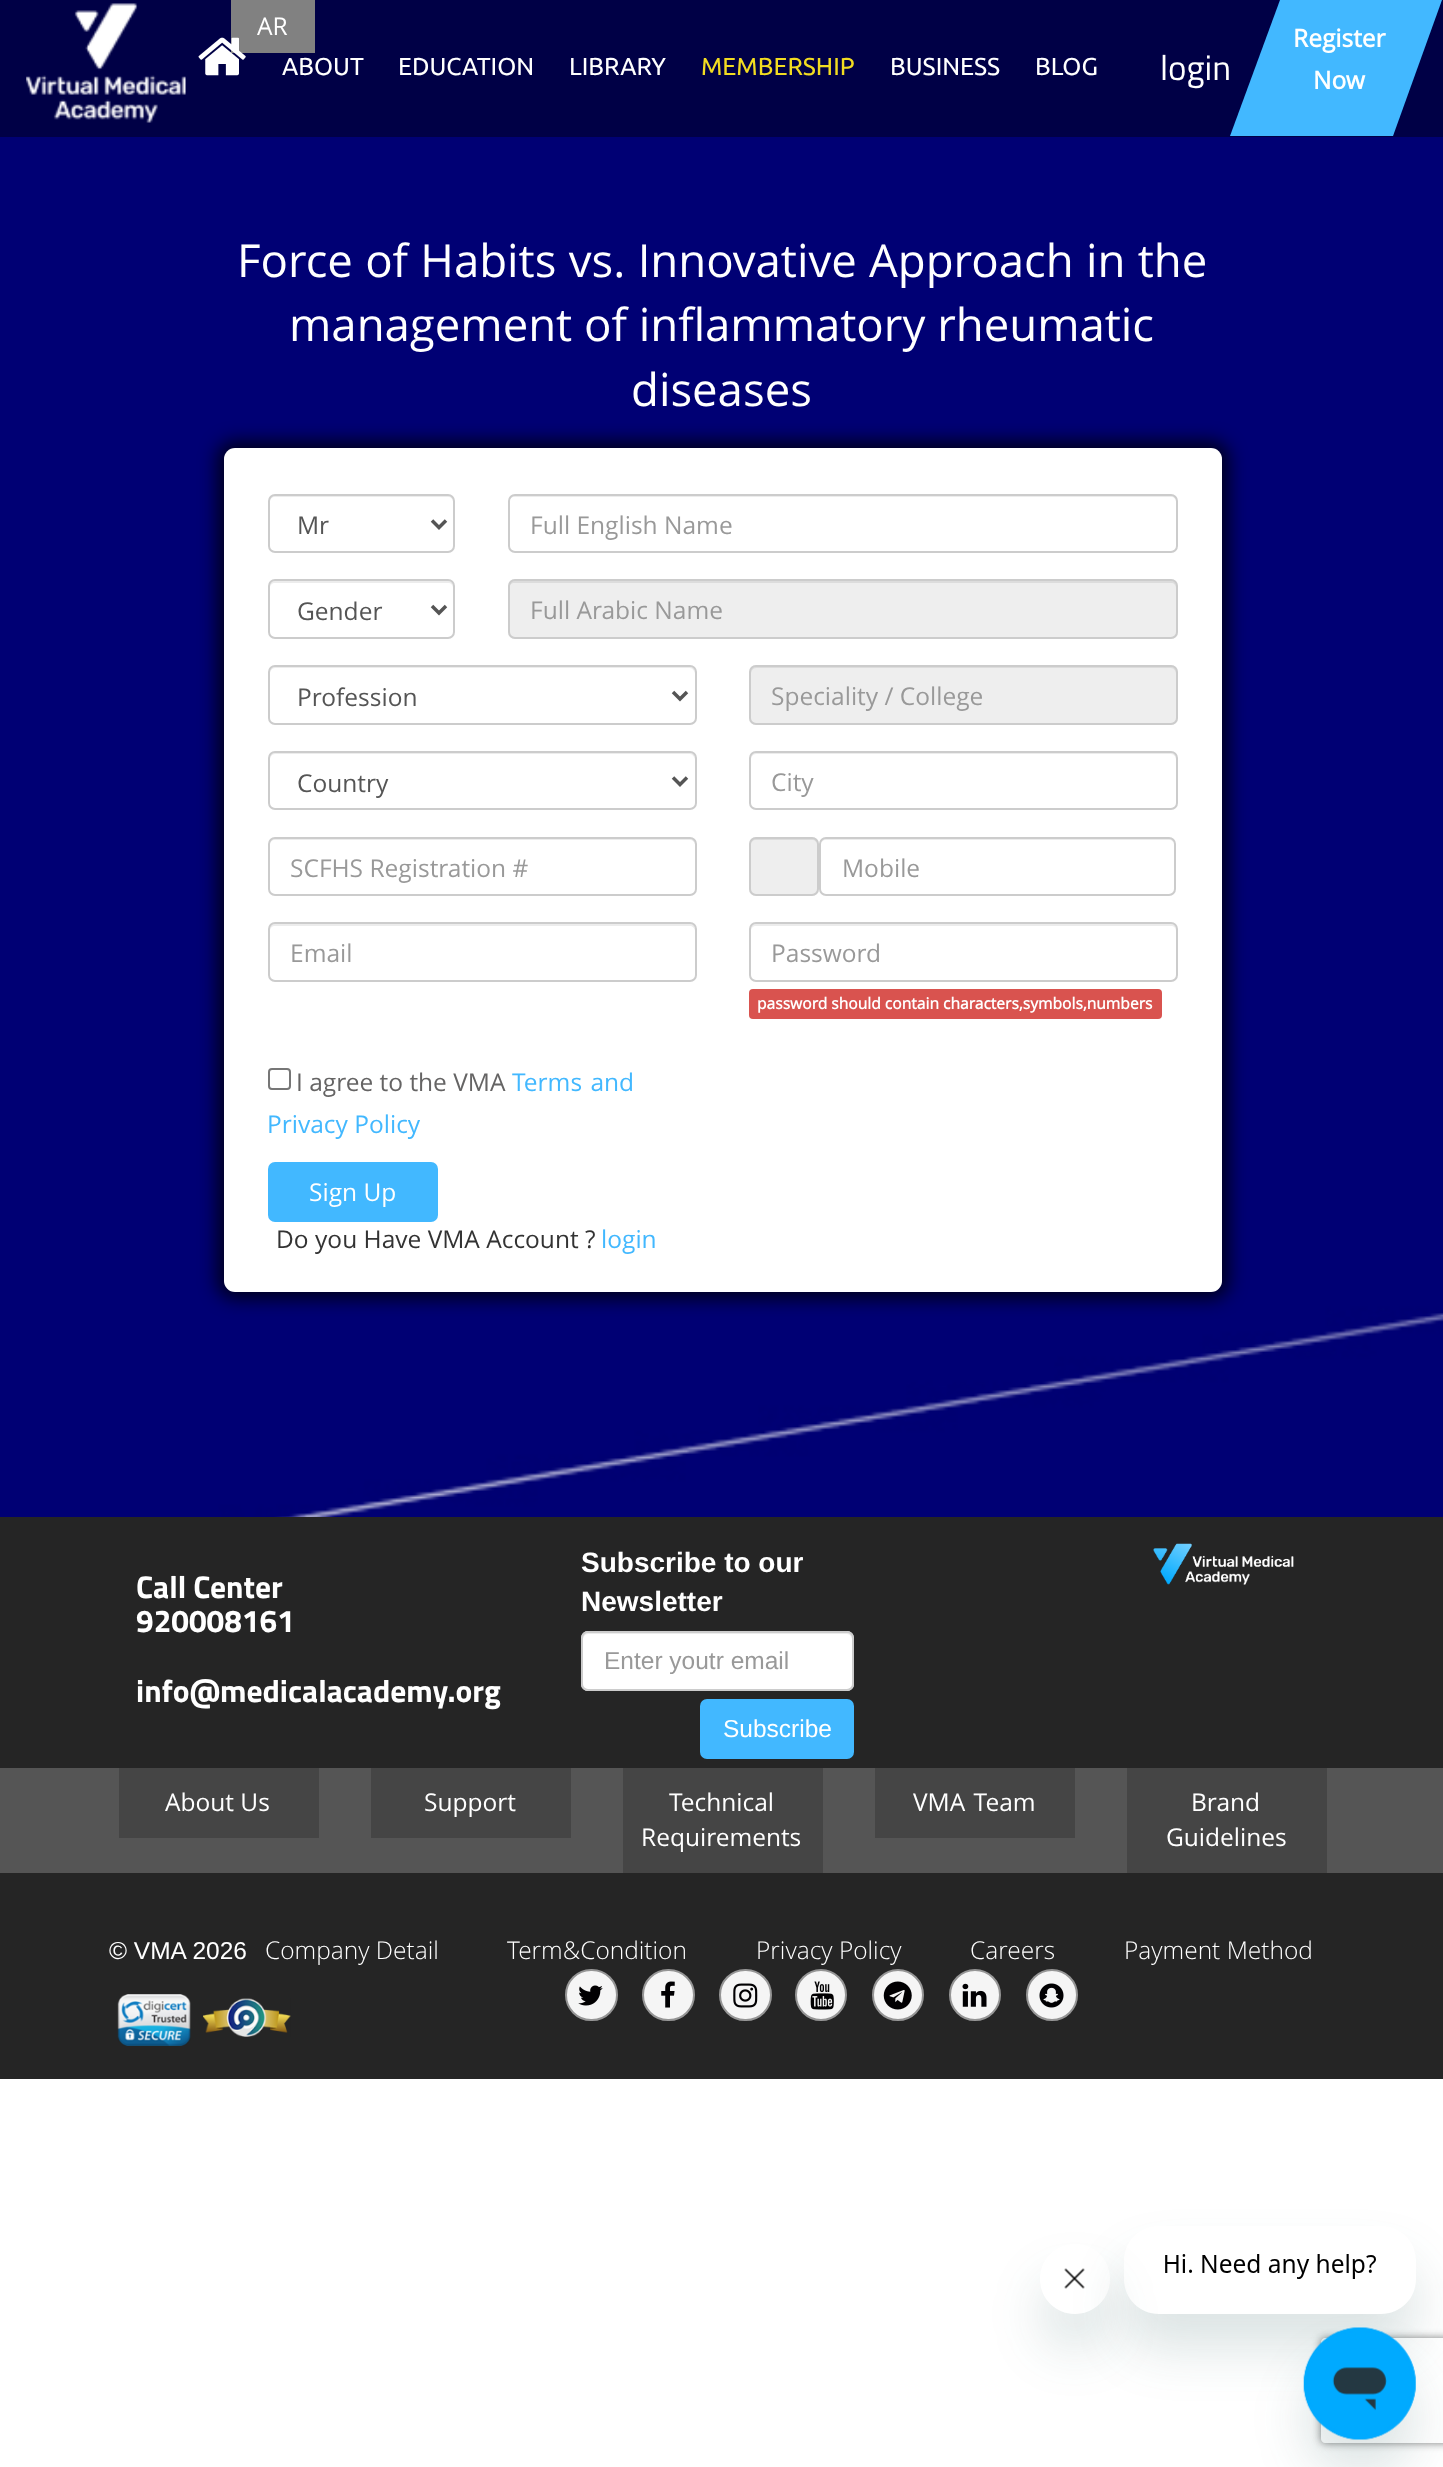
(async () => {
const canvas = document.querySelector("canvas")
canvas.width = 1443
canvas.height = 2467
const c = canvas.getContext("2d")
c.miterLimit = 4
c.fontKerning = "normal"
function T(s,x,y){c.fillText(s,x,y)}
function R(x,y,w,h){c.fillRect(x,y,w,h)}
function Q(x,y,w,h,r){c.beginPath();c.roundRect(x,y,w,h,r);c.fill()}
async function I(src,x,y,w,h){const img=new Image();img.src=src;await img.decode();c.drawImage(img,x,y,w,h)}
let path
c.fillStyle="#fff"
R(0,0,1443,2467)
c.fillStyle="#000046"
R(0,0,1443,137)
await I("1.png",26,3,160,120)
c.fillStyle="#818181"
R(231,0,84,53)
c.font="24.5px Open Sans"
c.fillStyle="#fff"
T("AR",257,35)
await I("2.png",198,37,48,39)
c.font="24.5px Ubuntu"
T("ABOUT",282,75)
T("EDUCATION",398,75)
T("LIBRARY",569,75)
c.fillStyle="#f2dc21"
T("MEMBERSHIP",701,75)
c.fillStyle="#fff"
T("BUSINESS",890,75)
T("BLOG",1035,75)
c.font="35px Titillium Web"
T("login",1160,80)
c.fillStyle="#42b8ff"
path = new Path2D("M1280 0h162l-49 136h-163z")
c.fill(path)
c.font="bold 24.5px Open Sans"
c.fillStyle="#fff"
T("Register",1293,47)
T("Now",1313,89)
await I("3.png",0,137,1443,1380)
c.wordSpacing="0.5px"
c.font="45.5px Open Sans"
T("Force of Habits vs. Innovative Approach in the",237,277)
c.wordSpacing="0px"
T("management of inflammatory rheumatic",289,341)
T("diseases",631,406)
c.fillStyle="#000000bf"
c.filter="blur(9px)"
c.beginPath()
c.roundRect(217,441,1012,858,18)
c.fill()
c.filter="none"
c.fillStyle="#fff"
Q(224,448,998,844,11)
c.fillStyle="#ececec"
path = new Path2D("M275 497h173c3 0 5 2 5 5v-2c0-3-2-5-5-5h-173c-3 0-5 2-5 5v2c0-3 2-5 5-5z")
c.fill(path)
c.beginPath()
c.roundRect(269,495,185,57,6)
c.strokeStyle="#ccc"
c.lineWidth=2
c.stroke()
path = new Path2D("M432 520.5l7 7l7-7")
c.strokeStyle="#555"
c.lineWidth=3.5
c.stroke(path)
c.font="24.5px Open Sans"
c.fillStyle="#555"
T("Mr",297,534)
c.fillStyle="#ececec"
path = new Path2D("M514 497h657c3 0 5 2 5 5v-2c0-3-2-5-5-5h-657c-3 0-5 2-5 5v2c0-3 3-5 5-5z")
c.fill(path)
c.beginPath()
c.roundRect(509,495,668,57,6)
c.strokeStyle="#ccc"
c.lineWidth=2
c.stroke()
c.fillStyle="#999"
T("Full English Name",530,534)
c.fillStyle="#ececec"
path = new Path2D("M275 583h173c3 0 5 2 5 5v-2c0-3-2-5-5-5h-173c-3 0-5 2-5 5v2c0-3 2-5 5-5z")
c.fill(path)
c.beginPath()
c.roundRect(269,580,185,58,6)
c.stroke()
path = new Path2D("M432 606l7 7l7-7")
c.strokeStyle="#555"
c.lineWidth=3.5
c.stroke(path)
c.fillStyle="#555"
T("Gender",297,620)
c.fillStyle="#eee"
Q(508,579,670,60,7)
c.fillStyle="#dcdcdc"
path = new Path2D("M514 583h657c3 0 5 2 5 5v-2c0-3-2-5-5-5h-657c-3 0-5 2-5 5v2c0-3 3-5 5-5z")
c.fill(path)
c.beginPath()
c.roundRect(509,580,668,58,6)
c.strokeStyle="#ccc"
c.lineWidth=2
c.stroke()
c.fillStyle="#999"
T("Full Arabic Name",530,619)
c.fillStyle="#ececec"
path = new Path2D("M275 668h415c2 0 5 3 5 6v-2c0-3-2-5-5-5h-415c-3 0-5 2-5 5v2c0-3 2-6 5-6z")
c.fill(path)
c.beginPath()
c.roundRect(269,666,427,58,6)
c.stroke()
path = new Path2D("M673 692l7 7l7-7")
c.strokeStyle="#555"
c.lineWidth=3.5
c.stroke(path)
c.fillStyle="#555"
T("Profession",297,706)
c.fillStyle="#eee"
Q(749,665,429,60,7)
c.fillStyle="#dcdcdc"
path = new Path2D("M756 668h415c3 0 5 3 5 6v-2c0-3-2-5-5-5h-415c-3 0-5 2-5 5v2c0-3 2-6 5-6z")
c.fill(path)
c.beginPath()
c.roundRect(750,666,427,58,6)
c.strokeStyle="#ccc"
c.lineWidth=2
c.stroke()
c.fillStyle="#999"
T("Speciality / College",771,705)
c.fillStyle="#ececec"
path = new Path2D("M275 754h415c2 0 5 3 5 6v-2c0-3-2-5-5-5h-415c-3 0-5 2-5 5v2c0-3 2-6 5-6z")
c.fill(path)
c.beginPath()
c.roundRect(269,752,427,57,6)
c.stroke()
path = new Path2D("M673 777.5l7 7l7-7")
c.strokeStyle="#555"
c.lineWidth=3.5
c.stroke(path)
c.fillStyle="#555"
T("Country",297,792)
c.fillStyle="#ececec"
path = new Path2D("M756 754h415c3 0 5 3 5 6v-2c0-3-2-5-5-5h-415c-3 0-5 2-5 5v2c0-3 2-6 5-6z")
c.fill(path)
c.beginPath()
c.roundRect(750,752,427,57,6)
c.strokeStyle="#ccc"
c.lineWidth=2
c.stroke()
c.fillStyle="#999"
T("City",771,791)
c.fillStyle="#ececec"
path = new Path2D("M275 840h415c2 0 5 2 5 5v-2c0-3-2-5-5-5h-415c-3 0-5 2-5 5v2c0-3 2-5 5-5z")
c.fill(path)
c.beginPath()
c.roundRect(269,838,427,57,6)
c.stroke()
c.fillStyle="#999"
T("SCFHS Registration #",290,877)
c.fillStyle="#eee"
Q(749,837,70,59,7)
c.fillStyle="#dcdcdc"
path = new Path2D("M756 840h56c3 0 5 2 5 5c0-9-7-7-14-7h-38c-7 0-14-2-14 7c0-3 2-5 5-5z")
c.fill(path)
c.beginPath()
c.roundRect(750,838,68,57,6)
c.stroke()
c.fillStyle="#ececec"
path = new Path2D("M826 840h343c3 0 5 2 5 5c0-3-1-7-5-7h-343c-4 0-5 4-5 7c0-3 2-5 5-5z")
c.fill(path)
c.beginPath()
c.roundRect(820,838,355,57,6)
c.stroke()
c.fillStyle="#999"
T("Mobile",842,877)
c.fillStyle="#ececec"
path = new Path2D("M275 926h415c2 0 5 2 5 5v-2c0-3-2-5-5-5h-415c-3 0-5 2-5 5v2c0-3 2-5 5-5z")
c.fill(path)
c.beginPath()
c.roundRect(269,923,427,58,6)
c.stroke()
c.fillStyle="#999"
T("Email",290,962)
c.fillStyle="#ececec"
path = new Path2D("M756 926h415c3 0 5 2 5 5v-2c0-3-2-5-5-5h-415c-3 0-5 2-5 5v2c0-3 2-5 5-5z")
c.fill(path)
c.beginPath()
c.roundRect(750,923,427,58,6)
c.stroke()
c.fillStyle="#999"
T("Password",771,962)
c.fillStyle="#d9534f"
Q(749,989,413,30,4)
c.font="bold 15.6px Open Sans"
c.fillStyle="#fff"
T("password should contain characters,symbols,numbers",757,1009)
c.beginPath()
c.roundRect(269,1069,21,20,3)
c.strokeStyle="#767676"
c.stroke()
c.font="24.5px Open Sans"
c.fillStyle="#656464"
T("I agree to the VMA",296,1091)
c.wordSpacing="2px"
c.fillStyle="#42b8ff"
T("Terms and",512,1091)
c.wordSpacing="0px"
T("Privacy Policy",267,1133)
Q(268,1162,170,60,7)
c.fillStyle="#fff"
T("Sign Up",309,1201)
c.fillStyle="#333"
T("Do you Have VMA Account ?",276,1248)
c.fillStyle="#42b8ff"
T("login",601,1248)
c.save()
path = new Path2D("M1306 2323h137v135h-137zm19 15h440c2 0 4 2 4 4v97c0 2-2 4-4 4h-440c-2 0-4-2-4-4v-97c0-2 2-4 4-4z")
c.clip(path,"evenodd")
c.fillStyle="#808080"
c.filter="blur(4.5px)"
c.beginPath()
c.roundRect(1321,2338,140,105,4)
c.fill()
c.filter="none"
c.restore()
c.fillStyle="#252525"
R(0,1517,1443,251)
c.font="bold 31.5px Titillium Web"
c.fillStyle="#fff"
T("Call Center",136,1598)
T("920008161",136,1632)
T("info@medicalacademy.org",136,1702)
c.font="bold 28px Liberation Sans"
T("Subscribe to our",581,1572)
T("Newsletter",581,1611)
Q(581,1631,273,60,7)
c.fillStyle="#ececec"
path = new Path2D("M588 1634h259c3 0 5 3 5 6v-2c0-3-2-5-5-5h-259c-3 0-5 2-5 5v2c0-3 2-6 5-6z")
c.fill(path)
c.beginPath()
c.roundRect(582,1632,271,58,6)
c.strokeStyle="#ccc"
c.stroke()
c.font="24.5px Liberation Sans"
c.fillStyle="#999"
T("Enter youtr email",604,1669)
c.fillStyle="#42b8ff"
Q(700,1699,154,60,7)
c.fillStyle="#fff"
T("Subscribe",723,1737)
await I("4.png",1153,1543,141,42)
c.fillStyle="#555"
R(0,1768,1443,105)
c.fillStyle="#454545"
R(119,1768,200,70)
c.font="24.5px Open Sans"
c.fillStyle="#fff"
T("About Us",165,1811)
c.fillStyle="#454545"
R(371,1768,200,70)
c.fillStyle="#fff"
T("Support",424,1811)
c.fillStyle="#454545"
R(623,1768,200,105)
c.fillStyle="#fff"
T("Technical",669,1811)
T("Requirements",641,1846)
c.fillStyle="#454545"
R(875,1768,200,70)
c.wordSpacing="2px"
c.fillStyle="#fff"
T("VMA Team",913,1811)
c.fillStyle="#454545"
R(1127,1768,200,105)
c.wordSpacing="0px"
c.fillStyle="#fff"
T("Brand",1191,1811)
T("Guidelines",1166,1846)
c.fillStyle="#252525"
R(0,1873,1443,206)
c.font="24.5px Liberation Sans"
c.fillStyle="#fff"
T("© VMA 2026",109,1959)
c.font="300 24.5px Open Sans"
T("Company Detail",265,1959)
T("Term&Condition",507,1959)
T("Privacy Policy",756,1959)
T("Careers",970,1959)
T("Payment Method",1124,1959)
await I("5.png",117,1994,74,52)
await I("6.png",203,1998,88,39)
c.fillStyle="#f5f5f5"
c.beginPath()
c.roundRect(566,1970,51,50,25)
c.fill()
c.strokeStyle="#959595"
c.stroke()
await I("7.png",578,1985,25,21)
c.beginPath()
c.roundRect(643,1970,51,50,25)
c.fill()
c.stroke()
await I("8.png",661,1981,14,27)
c.beginPath()
c.roundRect(720,1970,51,50,25)
c.fill()
c.stroke()
await I("9.png",733,1983,25,25)
c.beginPath()
c.arc(821,1995,25,0,7)
c.fill()
c.stroke()
await I("10.png",810,1981,24,29)
c.beginPath()
c.arc(898,1995,25,0,7)
c.fill()
c.stroke()
await I("11.png",883,1981,29,29)
c.beginPath()
c.arc(975,1995,25,0,7)
c.fill()
c.stroke()
await I("12.png",962,1983,25,24)
c.beginPath()
c.arc(1052,1995,25,0,7)
c.fill()
c.stroke()
await I("13.png",1039,1983,25,25)
c.save()
path = new Path2D("M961 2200h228v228h-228zm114 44c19.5 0 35 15.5 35 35c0 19.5-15.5 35-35 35c-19.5 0-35-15.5-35-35c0-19.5 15.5-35 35-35z")
c.clip(path,"evenodd")
c.fillStyle="#17494d26"
c.filter="blur(26px)"
c.beginPath()
c.roundRect(1040,2279,70,70,35)
c.fill()
c.filter="none"
c.restore()
await I("15.png",1064,2268,21,46)
c.save()
path = new Path2D("M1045 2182h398v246h-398zm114 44h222c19.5 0 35 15.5 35 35v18c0 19.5-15.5 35-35 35h-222c-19.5 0-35-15.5-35-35v-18c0-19.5 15.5-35 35-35z")
c.clip(path,"evenodd")
c.fillStyle="#17494d26"
c.filter="blur(26px)"
c.beginPath()
c.roundRect(1124,2261,292,88,35)
c.fill()
c.filter="none"
c.restore()
await I("14.png",1165,2254,211,25)
c.fillStyle="#17494d26"
c.filter="blur(26px)"
c.beginPath()
c.roundRect(1304,2363,112,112,56)
c.fill()
c.filter="none"
await I("16.png",1303,2327,113,113)
})()
